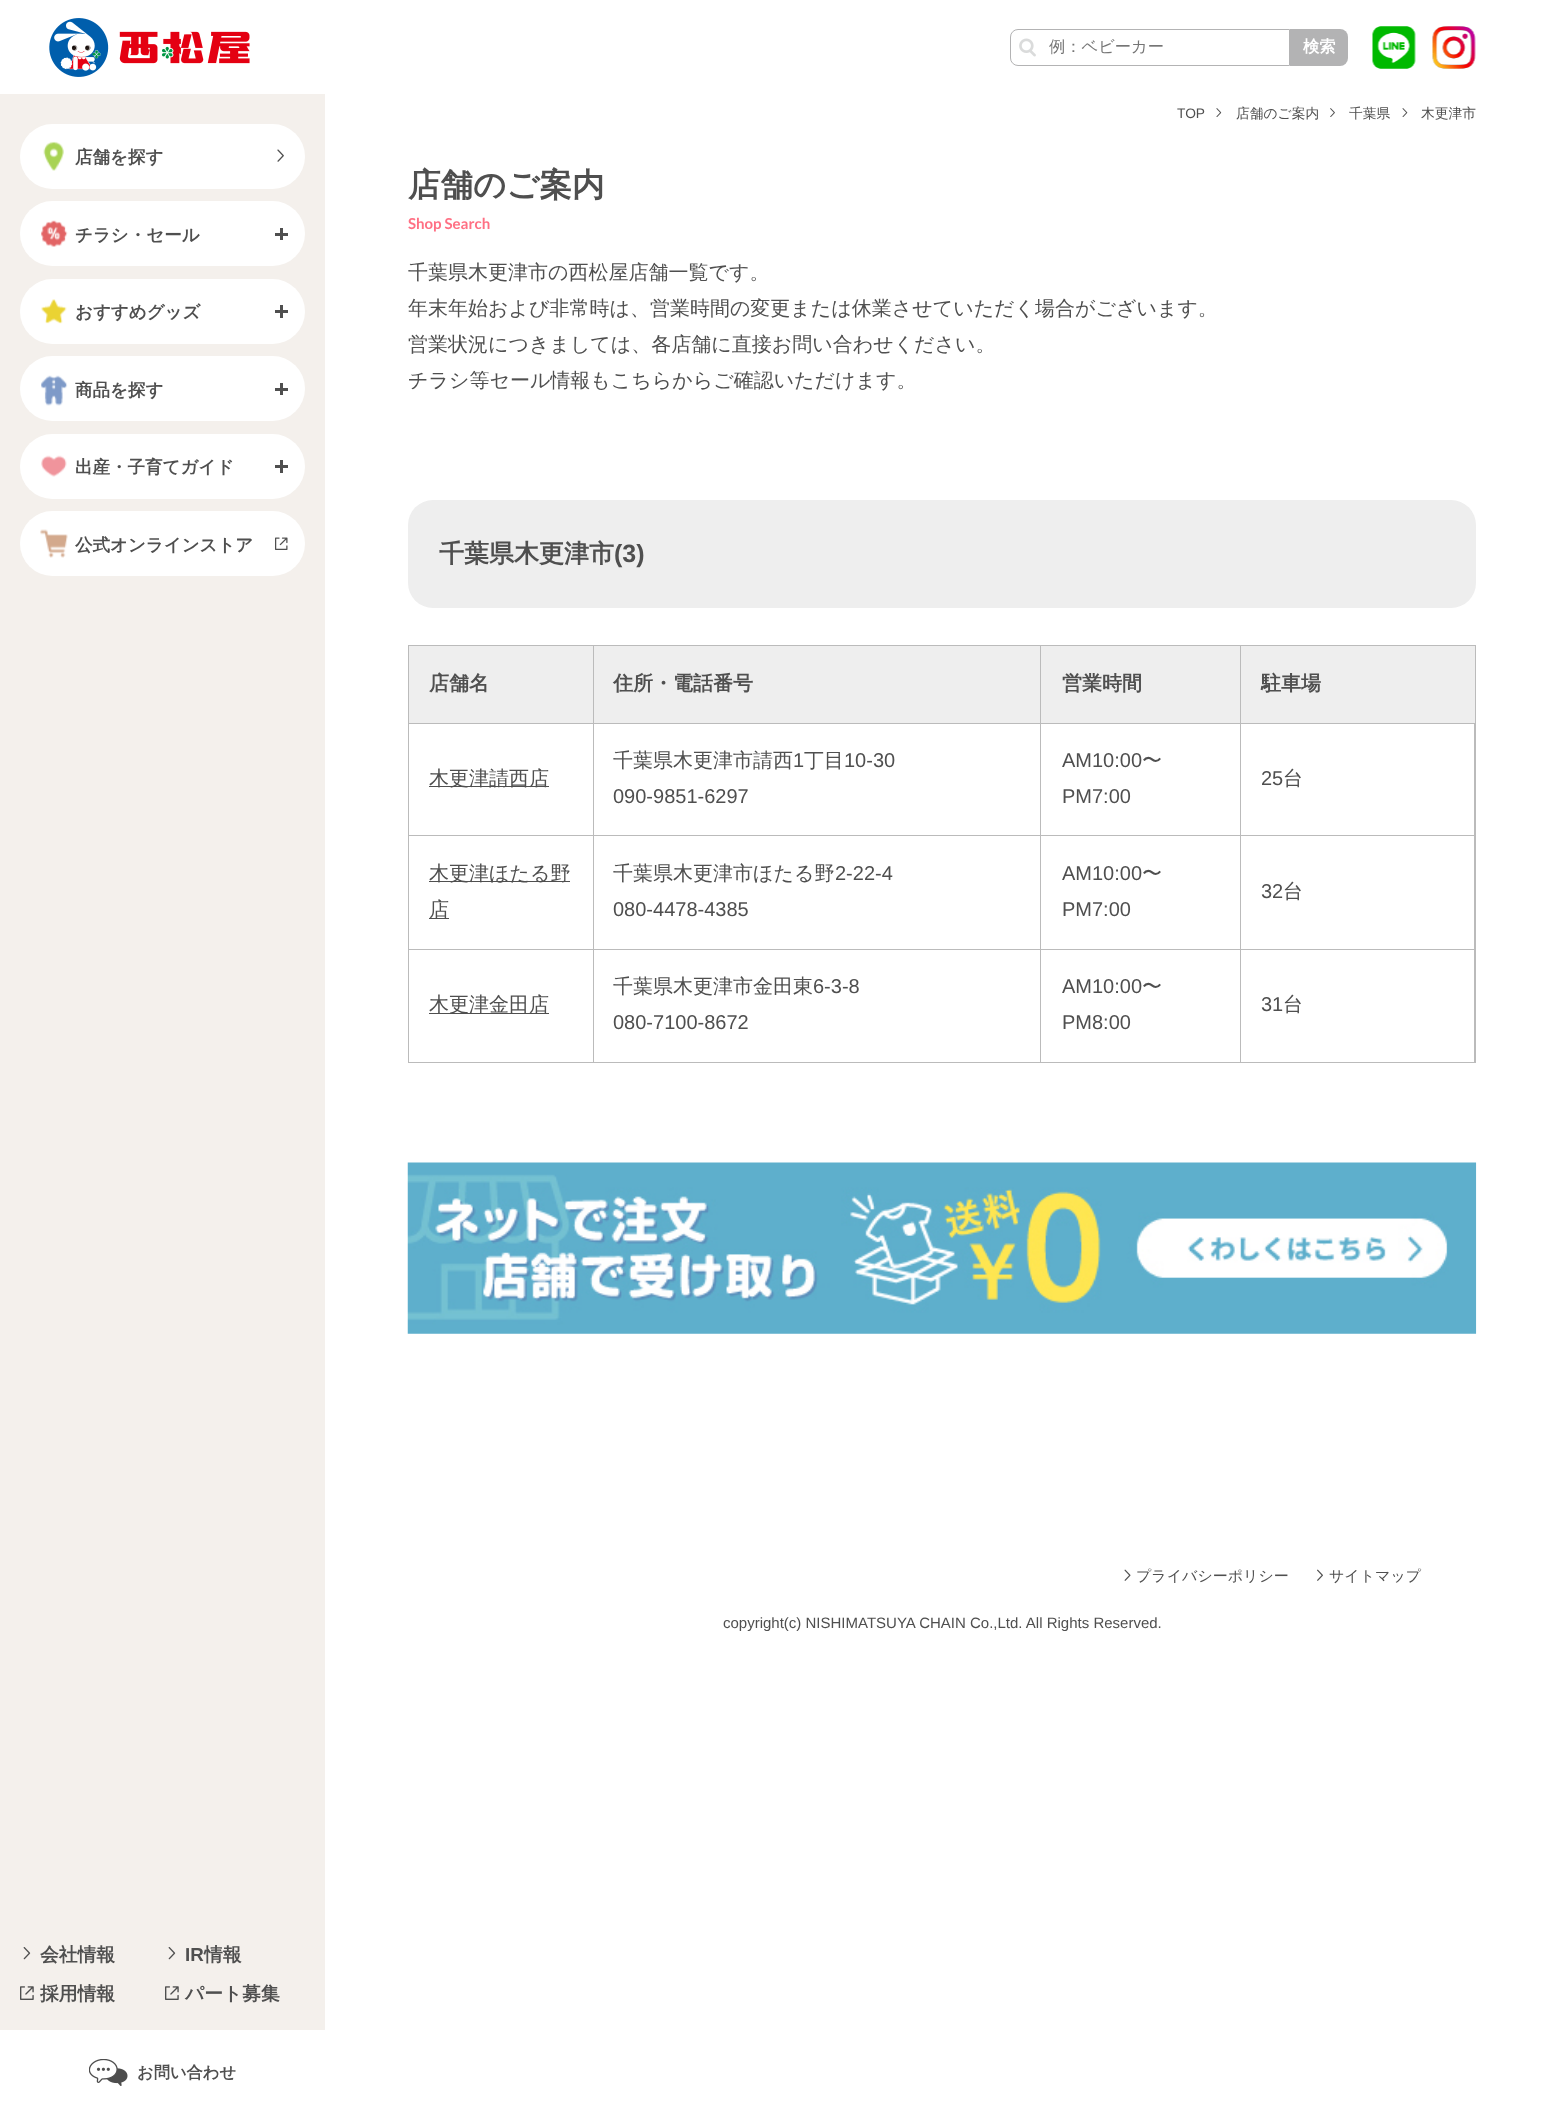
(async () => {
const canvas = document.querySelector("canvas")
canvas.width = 1558
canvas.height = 2114
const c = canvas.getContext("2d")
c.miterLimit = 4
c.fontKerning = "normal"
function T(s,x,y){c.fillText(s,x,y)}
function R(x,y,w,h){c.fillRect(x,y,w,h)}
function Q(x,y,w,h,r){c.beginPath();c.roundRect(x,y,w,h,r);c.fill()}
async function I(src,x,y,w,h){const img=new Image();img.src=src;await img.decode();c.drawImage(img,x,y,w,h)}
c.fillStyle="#fff"
R(0,0,1558,2114)
await I("1.png",49,18,201,59)
c.beginPath()
c.roundRect(1010.5,29.5,279,36,[7.5,0,0,7.5])
c.strokeStyle="#b3b3b4"
c.stroke()
await I("2.png",1019,38,17,19)
c.font="500 16.25px WenQuanYi Zen Hei"
c.fillStyle="#757575"
T("例：ベビーカー",1049,52)
c.fillStyle="#b3b3b4"
c.beginPath()
c.roundRect(1290,29,58,37,[0,8,8,0])
c.fill()
c.font="bold 16.25px WenQuanYi Zen Hei"
c.fillStyle="#fff"
T("検索",1303,52)
await I("3.png",1372,26,44,43)
await I("4.png",1432,26,44,43)
c.fillStyle="#f4f0ec"
R(0,94,325,1936)
c.fillStyle="#fff"
Q(20,124,285,65,32.5)
await I("5.png",43,141,21,30)
c.font="bold 17.5px WenQuanYi Zen Hei"
c.fillStyle="#4f4f4f"
T("店舗を探す",75,163)
await I("6.png",277,149,7,13)
c.fillStyle="#fff"
Q(20,201,285,65,32.5)
await I("7.png",41,220,27,27)
c.fillStyle="#4f4f4f"
T("チラシ・セール",75,241)
R(280,228,3,12)
R(275,233,13,3)
c.fillStyle="#fff"
Q(20,279,285,65,32.5)
await I("8.png",41,299,26,25)
c.fillStyle="#4f4f4f"
T("おすすめグッズ",75,318)
R(280,305,3,13)
R(275,310,13,3)
c.fillStyle="#fff"
Q(20,356,285,65,32.5)
await I("9.png",41,375,27,31)
c.fillStyle="#4f4f4f"
T("商品を探す",75,396)
R(280,383,3,12)
R(275,388,13,3)
c.fillStyle="#fff"
Q(20,434,285,65,32.5)
await I("10.png",41,455,26,22)
c.fillStyle="#4f4f4f"
T("出産・子育てガイド",75,473)
R(280,460,3,13)
R(275,465,13,3)
c.fillStyle="#fff"
Q(20,511,285,65,32.5)
await I("11.png",40,529,28,29)
c.fillStyle="#4f4f4f"
T("公式オンラインストア",75,551)
await I("12.png",275,537,13,13)
await I("13.png",23,1947,8,13)
c.font="bold 18.75px WenQuanYi Zen Hei"
T("会社情報",40,1961)
await I("13.png",168,1947,8,13)
c.font="bold 18.75px Liberation Sans"
T("IR",185,1961)
c.font="bold 18.75px WenQuanYi Zen Hei"
T("情報",204,1961)
await I("14.png",20,1986,14,14)
T("採用情報",40,2000)
await I("14.png",165,1986,14,14)
T("パート募集",185,2000)
await I("15.png",89,2059,39,27)
c.font="bold 16.25px WenQuanYi Zen Hei"
T("お問い合わせ",137,2078)
c.font="13.75px Liberation Sans"
T("TOP",1177,118)
await I("16.png",1216,108,6,9)
c.font="500 13.75px WenQuanYi Zen Hei"
T("店舗のご案内",1236,118)
await I("17.png",1330,108,5,9)
T("千葉県",1349,118)
await I("18.png",1402,108,6,9)
T("木更津市",1421,118)
c.font="bold 32.5px WenQuanYi Zen Hei"
T("店舗のご案内",408,196)
c.font="bold 15px Lato"
c.fillStyle="#ff7084"
T("Shop Search",408,229)
c.font="500 20px WenQuanYi Zen Hei"
c.fillStyle="#4f4f4f"
T("千葉県木更津市の西松屋店舗一覧です。",408,279)
T("年末年始および非常時は、営業時間の変更または休業させていただく場合がございます。",408,315)
T("営業状況につきましては、各店舗に直接お問い合わせください。",408,351)
T("チラシ等セール情報もこちらからご確認いただけます。",408,387)
c.fillStyle="#eee"
Q(408,500,1068,108,25)
c.font="bold 25px WenQuanYi Zen Hei"
c.fillStyle="#4f4f4f"
T("千葉県木更津市",439,562)
c.font="bold 25px Liberation Sans"
T("(3)",614,562)
c.strokeStyle="#bbb"
c.strokeRect(408.5,645.5,1067,417)
c.fillStyle="#eee"
R(409,646,184,77)
c.fillStyle="#bbb"
R(1240,949,1,114)
R(1474,723,1,340)
R(1240,949,235,1)
R(1240,835,1,115)
R(1240,835,235,1)
R(1240,723,1,113)
R(1240,723,235,1)
R(1240,645,1,79)
R(1040,949,1,114)
R(1040,949,201,1)
R(1040,835,1,115)
R(1040,835,201,1)
R(1040,723,1,113)
R(1040,723,201,1)
R(1040,645,1,79)
R(593,949,1,114)
R(593,949,448,1)
R(593,835,1,115)
R(593,835,448,1)
R(593,723,1,113)
R(593,723,448,1)
R(593,645,1,79)
R(409,723,185,1)
c.font="bold 20px WenQuanYi Zen Hei"
c.fillStyle="#4f4f4f"
T("店舗名",429,690)
c.fillStyle="#eee"
R(594,646,446,77)
c.fillStyle="#4f4f4f"
T("住所・電話番号",613,690)
c.fillStyle="#eee"
R(1041,646,199,77)
c.fillStyle="#4f4f4f"
T("営業時間",1062,690)
c.fillStyle="#eee"
R(1241,646,234,77)
c.fillStyle="#4f4f4f"
T("駐車場",1261,690)
c.fillStyle="#bbb"
R(409,835,185,1)
c.fillStyle="#4f4f4f"
R(429,786,120,1)
c.font="500 20px WenQuanYi Zen Hei"
T("木更津請西店",429,785)
T("千葉県木更津市請西",613,767)
c.font="20px Liberation Sans"
T("1",793,767)
c.font="500 20px WenQuanYi Zen Hei"
T("丁目",804,767)
c.font="20px Liberation Sans"
T("10-30",844,767)
T("090-9851-6297",613,803)
T("AM10:00",1062,767)
c.font="500 20px WenQuanYi Zen Hei"
T("〜",1142,767)
c.font="20px Liberation Sans"
T("PM7:00",1062,803)
T("25",1261,785)
c.font="500 20px WenQuanYi Zen Hei"
T("台",1283,785)
c.fillStyle="#bbb"
R(409,949,185,1)
c.fillStyle="#4f4f4f"
R(429,881,141,1)
T("木更津ほたる野",429,880)
R(429,918,20,1)
T("店",429,916)
T("千葉県木更津市ほたる野",613,880)
c.font="20px Liberation Sans"
T("2-22-4",835,880)
T("080-4478-4385",613,916)
T("AM10:00",1062,880)
c.font="500 20px WenQuanYi Zen Hei"
T("〜",1142,880)
c.font="20px Liberation Sans"
T("PM7:00",1062,916)
T("32",1261,898)
c.font="500 20px WenQuanYi Zen Hei"
T("台",1283,898)
R(429,1013,120,1)
T("木更津金田店",429,1011)
T("千葉県木更津市金田東",613,993)
c.font="20px Liberation Sans"
T("6-3-8",813,993)
T("080-7100-8672",613,1029)
T("AM10:00",1062,993)
c.font="500 20px WenQuanYi Zen Hei"
T("〜",1142,993)
c.font="20px Liberation Sans"
T("PM8:00",1062,1029)
T("31",1261,1011)
c.font="500 20px WenQuanYi Zen Hei"
T("台",1283,1011)
await I("19.png",407,1162,1070,172)
await I("20.png",1124,1569,7,12)
c.font="500 15px WenQuanYi Zen Hei"
T("プライバシーポリシー",1136,1581)
await I("21.png",1317,1569,6,12)
T("サイトマップ",1329,1581)
c.font="15px Liberation Sans"
T("copyright(c) NISHIMATSUYA CHAIN Co.,Ltd. All Rights Reserved.",723,1628)
})()
